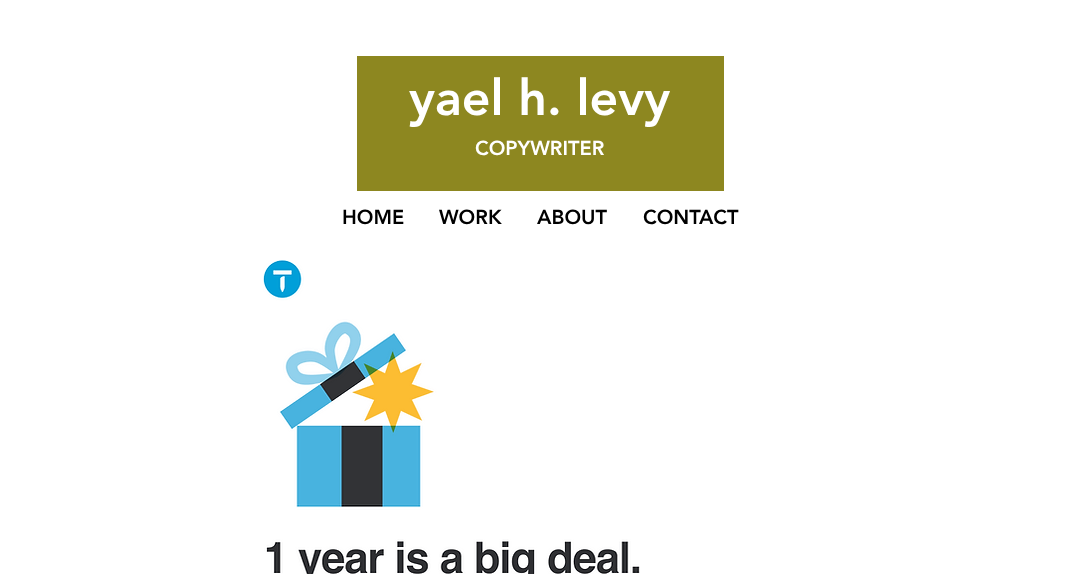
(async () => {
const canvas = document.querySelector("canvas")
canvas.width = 1077
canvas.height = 574
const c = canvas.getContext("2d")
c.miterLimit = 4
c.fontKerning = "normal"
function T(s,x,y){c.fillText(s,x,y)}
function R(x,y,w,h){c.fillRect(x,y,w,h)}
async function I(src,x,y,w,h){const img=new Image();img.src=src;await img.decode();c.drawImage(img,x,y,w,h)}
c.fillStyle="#fff"
R(0,0,1077,574)
c.fillStyle="#8d8720"
R(357,56,367,135)
c.font="900 50px 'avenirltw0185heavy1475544'"
c.fillStyle="#fff"
T("yael h. levy",409,115)
c.font="900 20px 'avenirltw0185heavy1475544'"
T("COPYWRITER",475,155)
c.fillStyle="#000"
T("HOME",342,224)
T("WORK",439,224)
T("ABOUT",537,224)
T("CONTACT",643,224)
await I("1.png",263,260,377,314)
})()
